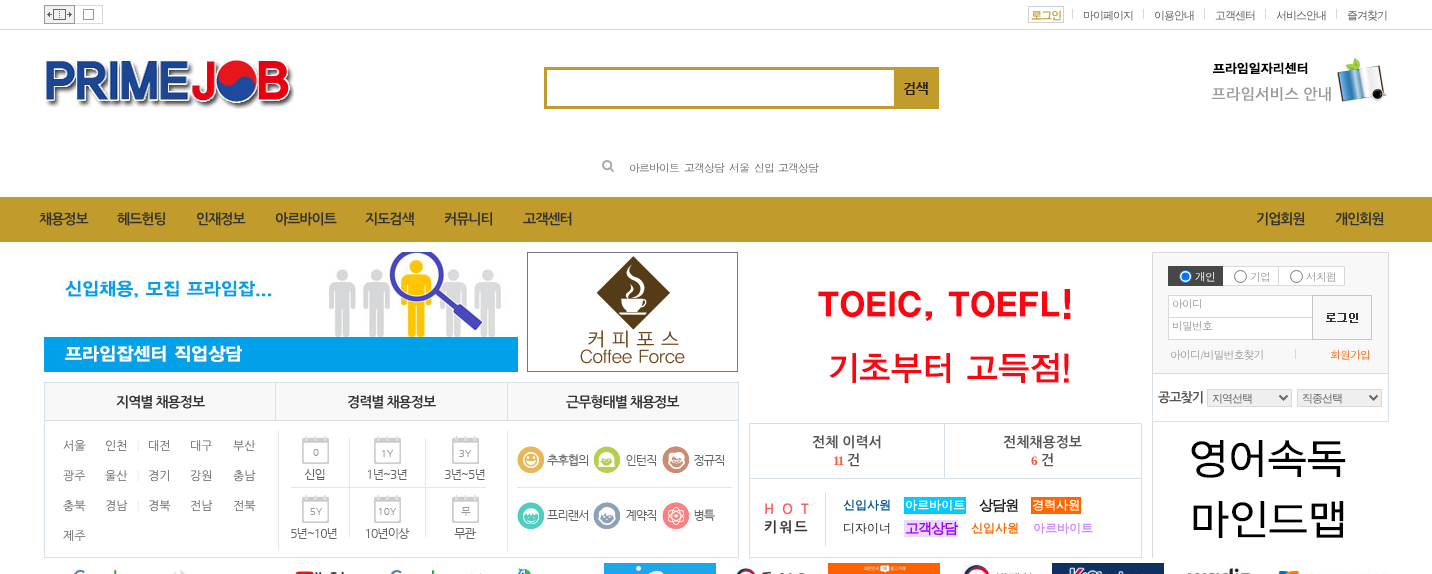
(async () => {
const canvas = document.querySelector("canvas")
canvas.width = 1432
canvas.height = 574
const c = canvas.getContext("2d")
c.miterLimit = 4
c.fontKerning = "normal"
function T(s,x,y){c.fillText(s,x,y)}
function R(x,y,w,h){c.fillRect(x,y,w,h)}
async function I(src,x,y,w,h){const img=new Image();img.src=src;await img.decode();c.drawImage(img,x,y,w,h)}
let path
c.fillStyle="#fff"
R(0,0,1432,574)
c.fillStyle="#d9d9d9"
R(0,29,1432,1)
await I("1.png",44,5,31,19)
await I("2.png",75,5,28,19)
c.strokeStyle="#cdcfd2"
c.strokeRect(1028.5,6.5,35,16)
c.letterSpacing="-1px"
c.font="bold 11px WenQuanYi Zen Hei"
c.fillStyle="#c29b2d"
T("로그인",1031,19)
c.fillStyle="#d9d9d9"
R(1072,9,1,10)
c.font="500 11px WenQuanYi Zen Hei"
c.fillStyle="#61646e"
T("마이페이지",1083,19)
c.fillStyle="#d9d9d9"
R(1143,9,1,10)
c.fillStyle="#61646e"
T("이용안내",1154,19)
c.fillStyle="#d9d9d9"
R(1204,9,1,10)
c.fillStyle="#61646e"
T("고객센터",1215,19)
c.fillStyle="#d9d9d9"
R(1265,9,1,10)
c.fillStyle="#61646e"
T("서비스안내",1276,19)
c.fillStyle="#d9d9d9"
R(1336,9,1,10)
c.fillStyle="#61646e"
T("즐겨찾기",1347,19)
await I("3.png",44,57,250,53)
c.strokeStyle="#c29b2d"
c.lineWidth=3
c.strokeRect(545.5,68.5,392,39)
await I("4.png",894,70,42,36)
await I("5.png",1211,58,176,44)
await I("6.png",602,160,12,12)
c.font="11px Dotum"
c.fillStyle="#666"
T("아르바이트",629,172)
T("고객상담",684,172)
T("서울",729,172)
T("신입",754,172)
T("고객상담",778,172)
c.fillStyle="#c29b2d"
R(0,197,1432,45)
c.font="bold 14px NanumGothic"
c.fillStyle="#333"
T("채용정보",39,224)
T("헤드헌팅",117,224)
T("인재정보",196,224)
T("아르바이트",275,224)
T("지도검색",365,224)
T("커뮤니티",444,224)
T("고객센터",523,224)
T("기업회원",1256,224)
T("개인회원",1335,224)
c.fillStyle="#f8f8f8"
c.beginPath()
c.rect(1152.5,252.5,236,121)
c.fill()
c.strokeStyle="#d9d9d9"
c.lineWidth=1
c.stroke()
c.fillStyle="#474747"
R(1168,266,55,20)
c.fillStyle="#fff"
c.beginPath()
c.arc(1185.5,276.5,6,0,7)
c.fill()
c.strokeStyle="#0075ff"
c.stroke()
c.fillStyle="#0075ff"
c.beginPath()
c.arc(1185.5,276.5,4,0,7)
c.fill()
c.font="11px Dotum"
c.fillStyle="#fff"
T("개인",1195,281)
R(1223,267,55,18)
c.fillStyle="#d9d9d9"
R(1223,266,55,1)
R(1223,285,55,1)
c.beginPath()
c.arc(1240.5,276.5,6,0,7)
c.strokeStyle="#767676"
c.stroke()
c.fillStyle="#9a9a9a"
T("기업",1250,281)
c.fillStyle="#fff"
c.beginPath()
c.rect(1278.5,266.5,66,19)
c.fill()
c.strokeStyle="#d9d9d9"
c.stroke()
c.beginPath()
c.arc(1296.5,276.5,6,0,7)
c.strokeStyle="#767676"
c.stroke()
c.fillStyle="#9a9a9a"
T("서치펌",1306,281)
c.fillStyle="#fff"
R(1169,296,143,21)
c.fillStyle="#d9d9d9"
R(1168,295,144,1)
R(1168,317,144,1)
R(1168,295,1,23)
c.fillStyle="#9a9a9a"
T("아이디",1172,308)
await I("7.png",1312,295,60,45)
c.fillStyle="#fff"
R(1169,318,143,21)
c.fillStyle="#d9d9d9"
R(1168,339,144,1)
R(1168,318,1,22)
c.fillStyle="#9a9a9a"
T("비밀번호",1172,330)
T("아이디/비밀번호찾기",1170,359)
c.fillStyle="#d9d9d9"
R(1295,349,1,10)
c.fillStyle="#f35700"
T("회원가입",1330,359)
c.fillStyle="#d8e1e8"
R(1388,374,1,48)
R(1152,421,237,1)
R(1152,374,1,48)
c.font="bold 13px NanumGothic"
c.fillStyle="#555"
T("공고찾기",1158,402)
c.fillStyle="#efefef"
c.beginPath()
c.rect(1207.5,389.5,84,17)
c.fill()
c.strokeStyle="#d9d9d9"
c.stroke()
path = new Path2D("M1279.5 395.5l4 4l4-4")
c.strokeStyle="#666"
c.lineWidth=2
c.stroke(path)
c.font="500 11px WenQuanYi Zen Hei"
c.fillStyle="#666"
T("지역선택",1212,402)
c.fillStyle="#efefef"
c.beginPath()
c.rect(1297.5,389.5,84,17)
c.fill()
c.strokeStyle="#d9d9d9"
c.lineWidth=1
c.stroke()
path = new Path2D("M1369.5 395.5l4 4l4-4")
c.strokeStyle="#666"
c.lineWidth=2
c.stroke(path)
c.fillStyle="#666"
T("직종선택",1302,402)
c.fillStyle="#d9d9d9"
R(1152,422,1,136)
await I("8.png",1191,440,155,98)
await I("9.png",44,252,474,120)
await I("10.png",527,252,211,120)
c.fillStyle="#f8f8f8"
R(45,383,230,37)
c.fillStyle="#d8e1e8"
R(44,382,695,1)
R(44,382,1,38)
c.font="bold 14px NanumGothic"
c.fillStyle="#333"
T("지역별 채용정보",116,407)
c.fillStyle="#f8f8f8"
R(276,383,231,37)
c.fillStyle="#d8e1e8"
R(275,382,1,38)
c.fillStyle="#333"
T("경력별 채용정보",347,407)
c.fillStyle="#f8f8f8"
R(508,383,230,37)
c.fillStyle="#d8e1e8"
R(738,382,1,38)
R(507,382,1,38)
c.fillStyle="#333"
T("근무형태별 채용정보",566,407)
c.strokeStyle="#d8e1e8"
c.lineWidth=1
c.strokeRect(44.5,420.5,694,137)
c.letterSpacing="0px"
c.font="12px NanumGothic"
c.fillStyle="#666"
T("서울",63,450)
T("인천",105,450)
c.font="12px Dotum"
c.fillStyle="#e6e6e6"
T("|",135,450)
c.font="12px NanumGothic"
c.fillStyle="#666"
T("대전",148,450)
T("대구",190,450)
T("부산",233,450)
T("광주",63,480)
T("울산",105,480)
c.font="12px Dotum"
c.fillStyle="#e6e6e6"
T("|",135,480)
c.font="12px NanumGothic"
c.fillStyle="#666"
T("경기",148,480)
T("강원",190,480)
T("충남",233,480)
T("충북",63,510)
T("경남",105,510)
c.font="12px Dotum"
c.fillStyle="#e6e6e6"
T("|",135,510)
c.font="12px NanumGothic"
c.fillStyle="#666"
T("경북",148,510)
T("전남",190,510)
T("전북",233,510)
T("제주",63,540)
c.fillStyle="#e6e6e6"
R(278,431,1,120)
await I("11.png",291,436,195,103)
R(507,431,1,120)
await I("12.png",515,446,217,83)
await I("13.png",818,289,253,94)
c.strokeRect(749.5,423.5,392,134)
c.fillStyle="#d8e1e8"
R(944,424,1,55)
R(750,478,391,1)
c.font="bold 14px NanumGothic"
c.fillStyle="#555"
T("전체 이력서",812,447)
c.letterSpacing="-1px"
c.font="bold 13px Liberation Serif"
c.fillStyle="#ff5d3a"
T("11",833,465)
c.letterSpacing="0px"
c.font="bold 14px NanumGothic"
c.fillStyle="#555"
T("건",847,465)
T("전체채용정보",1003,447)
c.letterSpacing="-1px"
c.font="bold 13px Liberation Serif"
c.fillStyle="#ff5335"
T("6",1031,465)
c.letterSpacing="0px"
c.font="bold 14px NanumGothic"
c.fillStyle="#555"
T("건",1041,465)
c.letterSpacing="2px"
c.fillStyle="#ff5d5b"
T("H O T",764,514)
c.fillStyle="#333"
T("키워드",764,532)
c.fillStyle="#d8e1e8"
R(825,492,1,54)
c.letterSpacing="0px"
c.font="bold 12px WenQuanYi Zen Hei"
c.fillStyle="#095392"
T("신입사원",843,509)
c.fillStyle="#0cf"
R(904,497,62,17)
c.fillStyle="#fff"
T("아르바이트",905,509)
c.letterSpacing="-1px"
c.font="bold 14px WenQuanYi Zen Hei"
c.fillStyle="#202020"
T("상담원",979,510)
c.fillStyle="#f60"
R(1031,497,50,17)
c.letterSpacing="0px"
c.font="bold 12px WenQuanYi Zen Hei"
c.fillStyle="#fff"
T("경력사원",1032,509)
c.font="500 12px WenQuanYi Zen Hei"
c.fillStyle="#202020"
T("디자이너",843,532)
c.fillStyle="#eed8ff"
R(904,520,54,17)
c.letterSpacing="-1px"
c.font="bold 14px WenQuanYi Zen Hei"
c.fillStyle="#9801ff"
T("고객상담",905,533)
c.letterSpacing="0px"
c.font="bold 12px WenQuanYi Zen Hei"
c.fillStyle="#f60"
T("신입사원",971,532)
c.fillStyle="#d18cff"
T("아르바이트",1033,532)
await I("14.png",74,569,43,5)
await I("15.png",174,569,12,5)
await I("16.png",295,571,49,3)
await I("17.png",390,569,92,5)
await I("18.png",517,568,14,6)
await I("19.png",604,563,112,11)
await I("20.png",732,563,79,11)
await I("21.png",828,563,112,11)
await I("22.png",962,563,72,11)
await I("23.png",1052,563,112,11)
await I("24.png",1188,563,64,11)
await I("25.png",1276,571,111,3)
})()
